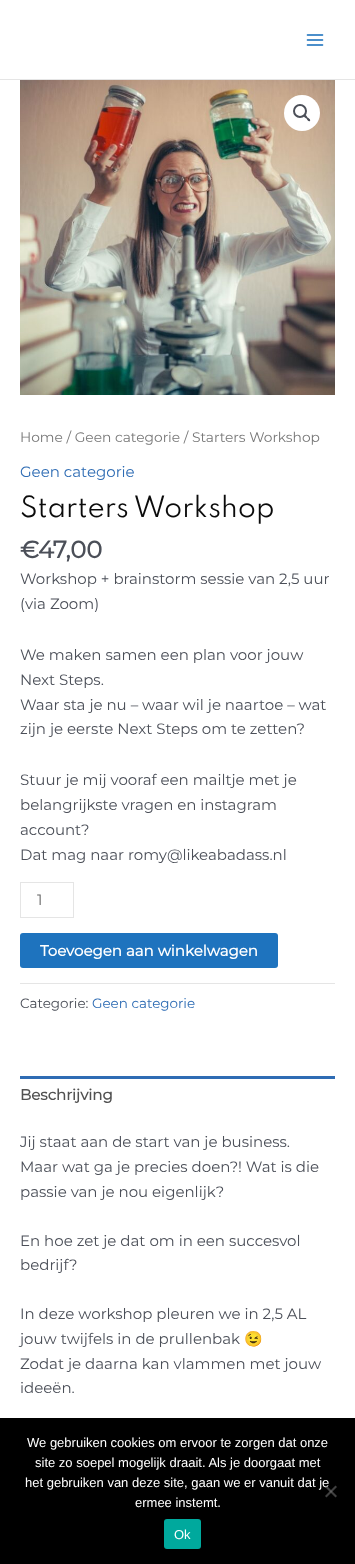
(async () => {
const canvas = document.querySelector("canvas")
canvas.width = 355
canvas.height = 1564
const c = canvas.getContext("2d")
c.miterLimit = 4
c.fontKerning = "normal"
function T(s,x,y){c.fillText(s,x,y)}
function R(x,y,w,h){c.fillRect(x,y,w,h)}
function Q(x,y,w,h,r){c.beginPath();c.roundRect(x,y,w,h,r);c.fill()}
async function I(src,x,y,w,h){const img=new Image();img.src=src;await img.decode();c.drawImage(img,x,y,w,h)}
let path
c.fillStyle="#fff"
R(0,0,355,1564)
c.fillStyle="#e5e5e5"
R(0,79,355,1)
await I("1.png",306,34,18,12)
await I("2.png",20,80,315,315)
c.fillStyle="#fff"
c.beginPath()
c.arc(302,113,18,0,7)
c.fill()
c.beginPath()
c.arc(300,111,6,0,7)
c.strokeStyle="#4b4f58"
c.lineWidth=2
c.stroke()
c.fillStyle="#4b4f58"
path = new Path2D("M304 115c1.5-1 3 1.5 3.5 2.5c1 .5 3.5 2 2.5 3.5c-1.5 1-3-1.5-3.5-2.5c-1-.5-3.5-2-2.5-3.5z")
c.fill(path)
c.font="100 13.8px Montserrat"
c.fillStyle="#777"
T("Home / Geen categorie / Starters Workshop",20,442)
c.font="100 15px Montserrat"
c.fillStyle="#2e6cb4"
T("Geen categorie",20,477)
c.font="100 26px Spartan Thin"
c.fillStyle="#0b0b0b"
T("Starters Workshop",20,517)
c.font="bold 24px Montserrat"
c.fillStyle="#4b4f58"
T("€",20,558)
T("47,00",38,558)
c.font="100 15px Montserrat"
T("Workshop + brainstorm sessie van 2,5 uur",20,584)
T("(via Zoom)",20,609)
T("We maken samen een plan voor jouw",20,660)
T("Next Steps.",20,685)
T("Waar sta je nu – waar wil je naartoe – wat",20,710)
T("zijn je eerste Next Steps om te zetten?",20,734)
T("Stuur je mij vooraf een mailtje met je",20,785)
T("belangrijkste vragen en instagram",20,810)
T("account?",20,835)
T("Dat mag naar romy@likeabadass.nl",20,860)
c.strokeStyle="#e5e5e5"
c.lineWidth=1
c.strokeRect(20.5,882.5,53,35)
c.fillStyle="#666"
T("1",37,905)
c.fillStyle="#1e73be"
Q(20,933,258,35,3)
c.font="bold 15px Montserrat"
c.fillStyle="#fff"
T("Toevoegen aan winkelwagen",40,956)
c.fillStyle="#e5e5e5"
R(20,983,315,1)
c.font="100 13.5px Montserrat"
c.fillStyle="#4b4f58"
T("Categorie:",20,1008)
c.fillStyle="#2e6cb4"
T("Geen categorie",92,1008)
R(20,1076,315,3)
c.font="bold 15px Montserrat"
c.fillStyle="#515151"
T("Beschrijving",20,1100)
c.font="100 15px Montserrat"
c.fillStyle="#4b4f58"
T("Jij staat aan de start van je business.",20,1147)
T("Maar wat ga je precies doen?! Wat is die",20,1172)
T("passie van je nou eigenlijk?",20,1197)
T("En hoe zet je dat om in een succesvol",20,1246)
T("bedrijf?",20,1270)
T("In deze workshop pleuren we in 2,5 AL",20,1319)
T("jouw twijfels in de prullenbak",20,1344)
c.font="15px Noto Color Emoji"
T("😉",244,1344)
c.font="100 15px Montserrat"
T("Zodat je daarna kan vlammen met jouw",20,1369)
T("ideeën.",20,1393)
c.fillStyle="#000"
R(0,1418,355,146)
c.font="13px Liberation Sans"
c.fillStyle="#fff"
T("We gebruiken cookies om ervoor te zorgen dat onze",27,1447)
T("site zo soepel mogelijk draait. Als je doorgaat met",35,1467)
T("het gebruiken van deze site, gaan we er vanuit dat je",25,1487)
T("ermee instemt.",135,1507)
c.fillStyle="#404040"
path = new Path2D("M335.5 1485.5l1.5 1.5l-10.5 10.5l-1.5-1.5z")
c.fill(path)
c.fillStyle="#80808080"
path = new Path2D("M325 1487l1.5-1.5l10.5 10.5l-1.5 1.5z")
c.fill(path)
c.fillStyle="#00a99d"
Q(164,1519,37,30,3)
c.fillStyle="#fff"
T("Ok",174,1539)
})()
